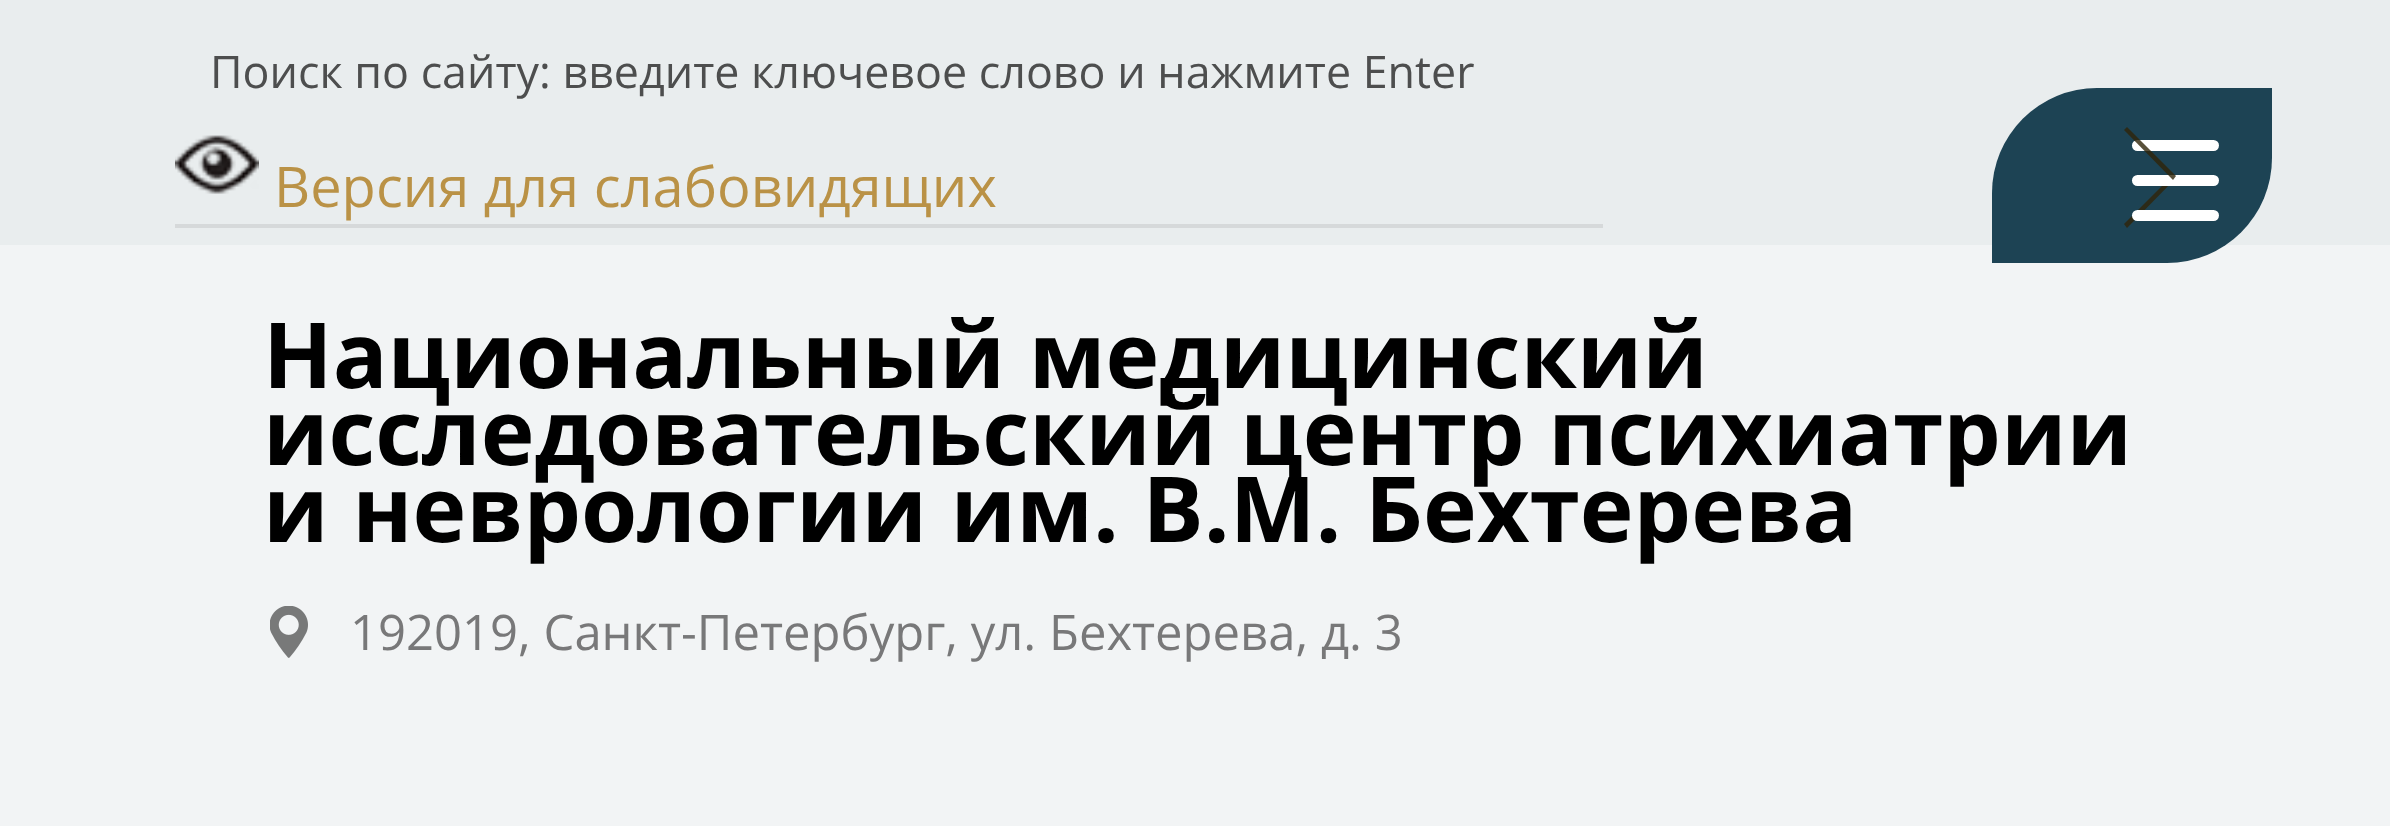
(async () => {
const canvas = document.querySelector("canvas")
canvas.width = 2390
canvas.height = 826
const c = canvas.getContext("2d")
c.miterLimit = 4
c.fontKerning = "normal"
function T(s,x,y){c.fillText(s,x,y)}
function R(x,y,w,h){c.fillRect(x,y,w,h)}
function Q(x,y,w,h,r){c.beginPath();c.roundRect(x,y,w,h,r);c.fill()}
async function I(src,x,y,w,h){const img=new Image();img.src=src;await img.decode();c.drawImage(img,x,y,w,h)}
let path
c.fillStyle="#e9edee"
R(0,0,2390,826)
c.font="44.8px Open Sans"
c.fillStyle="#4d4e4e"
T("Поиск по сайту: введите ключевое слово и нажмите Enter",210,88)
c.fillStyle="#d6d9da"
R(175,224,1428,4)
await I("1.png",175,135,84,59)
c.font="56px Open Sans"
c.fillStyle="#ba9246"
T("Версия для слабовидящих",274,207)
c.fillStyle="#f2f4f5"
R(0,245,2390,581)
c.font="bold 91px Open Sans"
c.fillStyle="#000"
T("Национальный медицинский",263,388)
T("исследовательский центр психиатрии",263,465)
T("и неврологии им. В.М. Бехтерева",263,542)
await I("2.png",270,606,38,52)
c.font="49px Open Sans"
c.fillStyle="#787879"
T("192019, Санкт-Петербург, ул. Бехтерева, д. 3",350,650)
c.fillStyle="#1d4354"
c.beginPath()
c.roundRect(1992,88,280,175,[105,0,105,0])
c.fill()
c.fillStyle="#2c2a18"
path = new Path2D("M2124 224l49-49l3 3l-49 50z")
c.fill(path)
c.fillStyle="#fff"
Q(2132,175,87,11,5.5)
Q(2132,140,87,11,5.5)
c.fillStyle="#302409cc"
path = new Path2D("M2127 127l49 49l-3 4l-49-50z")
c.fill(path)
c.fillStyle="#fff"
Q(2132,210,87,11,5.5)
})()
